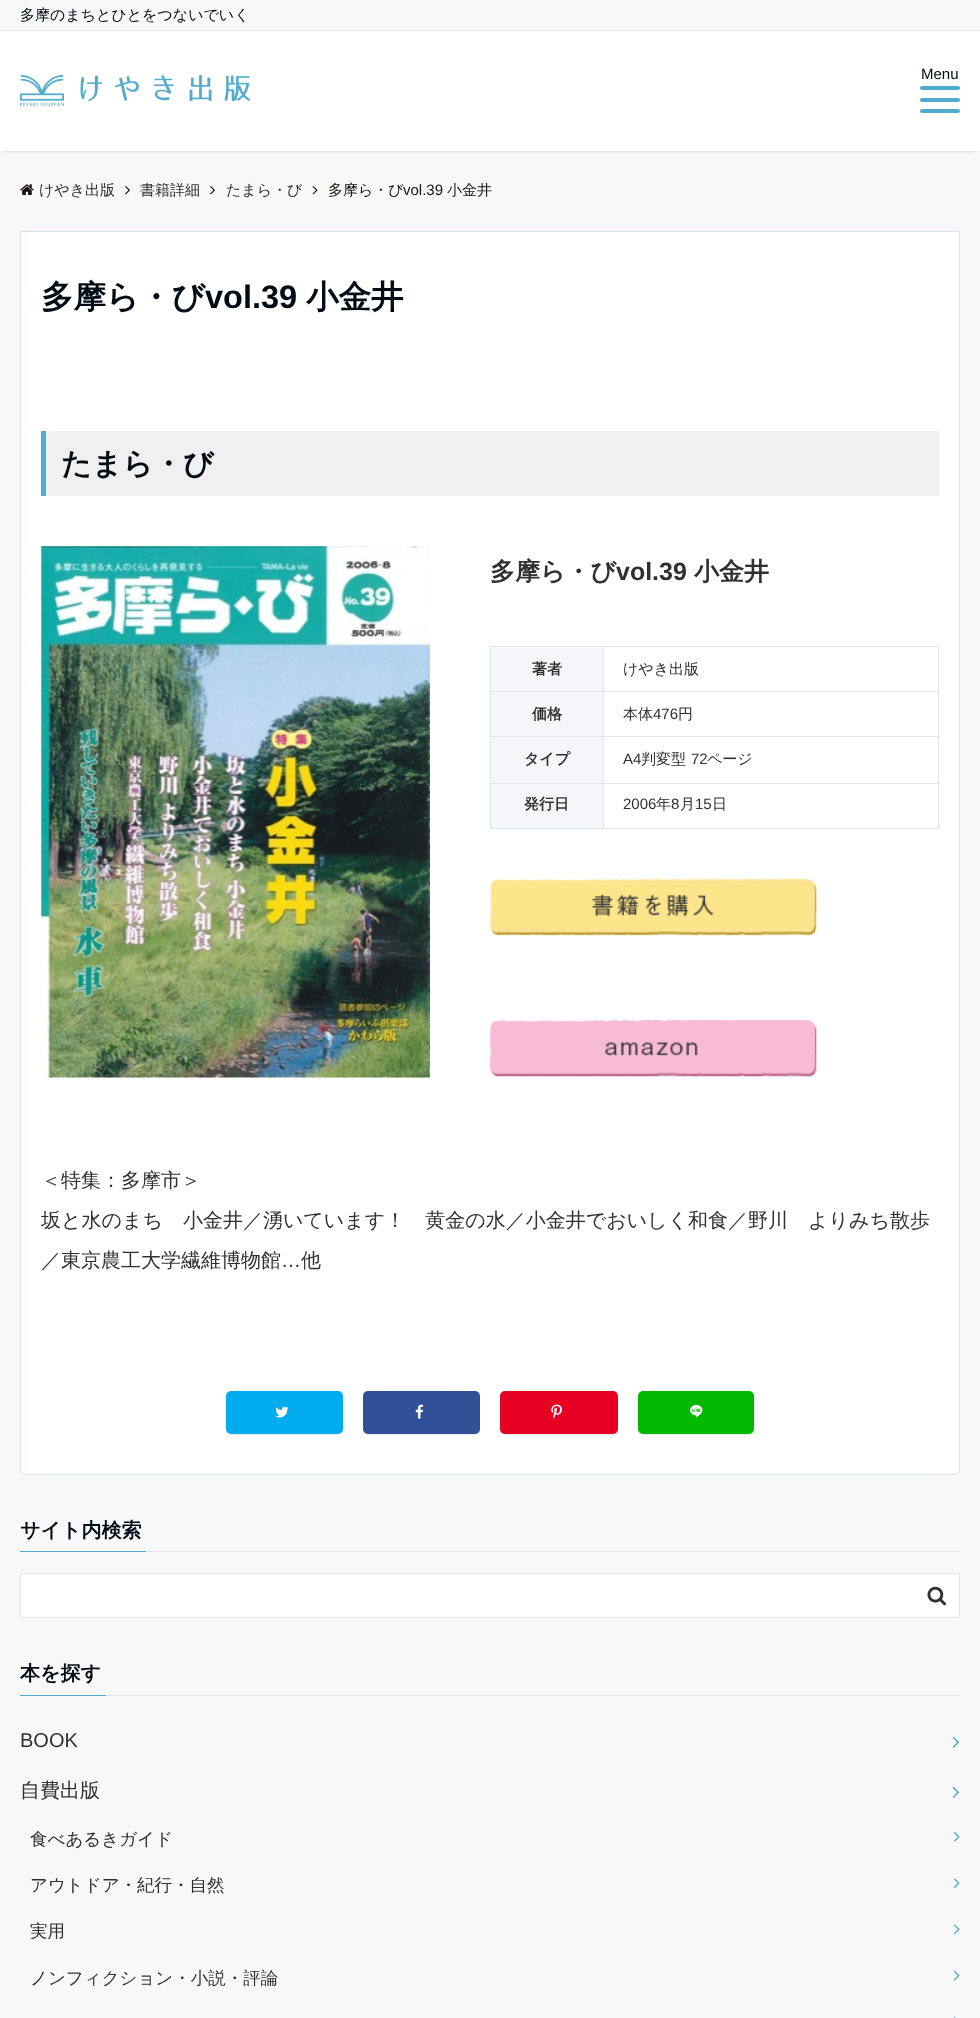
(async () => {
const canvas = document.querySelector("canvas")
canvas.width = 980
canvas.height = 2018
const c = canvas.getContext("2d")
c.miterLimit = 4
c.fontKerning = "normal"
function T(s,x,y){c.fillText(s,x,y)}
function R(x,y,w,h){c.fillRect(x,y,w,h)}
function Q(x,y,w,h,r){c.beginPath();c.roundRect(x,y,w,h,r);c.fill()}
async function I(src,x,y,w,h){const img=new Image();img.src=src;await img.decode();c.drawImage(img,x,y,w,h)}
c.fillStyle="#f8f8f8"
R(0,0,980,2018)
c.fillStyle="#e2e5e8"
R(0,30,980,1)
c.font="500 15px WenQuanYi Zen Hei"
c.fillStyle="#000c15"
T("多摩のまちとひとをつないでいく",20,20)
c.fillStyle="#0000004d"
c.filter="blur(2px)"
c.beginPath()
c.rect(4,38,972,112)
c.fill()
c.filter="none"
c.fillStyle="#fff"
R(0,31,980,120)
await I("1.png",20,75,230,32)
c.font="15px Liberation Sans"
c.fillStyle="#000c15"
T("Menu",921,79)
c.fillStyle="#50accc"
Q(920,86,40,4,2)
Q(920,98,40,4,2)
Q(920,109,40,4,2)
await I("2.png",20,184,14,11)
c.font="500 15px WenQuanYi Zen Hei"
c.fillStyle="#303030"
T("けやき出版",39,195)
await I("3.png",125,186,5,9)
T("書籍詳細",140,195)
await I("3.png",210,186,5,9)
T("たまら・び",226,195)
await I("4.png",312,186,6,9)
c.fillStyle="#161410"
T("多摩ら・び",328,195)
c.font="15px Liberation Sans"
T("vol.39",403,195)
c.save()
c.beginPath()
c.rect(328,183,165,15)
c.clip()
c.font="500 15px WenQuanYi Zen Hei"
T("小金井",447,195)
c.restore()
c.fillStyle="#fff"
c.beginPath()
c.roundRect(20.5,231.5,939,1243,[0,0,4.5,4.5])
c.fill()
c.strokeStyle="#d9e2f0"
c.stroke()
c.font="bold 32.5px WenQuanYi Zen Hei"
c.fillStyle="#000c15"
T("多摩ら・び",41,308)
c.font="bold 32.5px Liberation Sans"
T("vol.39",205,308)
c.font="bold 32.5px WenQuanYi Zen Hei"
T("小金井",306,308)
c.fillStyle="#f0f0f0"
R(46,431,893,65)
c.fillStyle="#50accc"
R(41,431,5,65)
c.font="bold 30px WenQuanYi Zen Hei"
c.fillStyle="#000c15"
T("たまら・び",61,474)
await I("5.png",41,546,389,532)
c.font="bold 25px WenQuanYi Zen Hei"
c.fillStyle="#303030"
T("多摩ら・び",490,580)
c.font="bold 25px Liberation Sans"
T("vol.39",616,580)
c.font="bold 25px WenQuanYi Zen Hei"
T("小金井",694,580)
c.fillStyle="#f4f6fa"
R(491,648,112,135)
c.fillStyle="#e2e5e8"
R(603,646,336,1)
R(603,691,336,1)
R(603,736,336,1)
R(603,783,336,1)
R(938,783,1,46)
R(603,828,336,1)
R(603,783,1,46)
R(490,783,114,1)
R(603,736,1,48)
R(490,736,114,1)
R(603,691,1,47)
R(490,691,114,1)
R(603,646,1,47)
R(490,646,114,1)
R(490,828,114,1)
R(490,783,1,46)
R(490,736,1,48)
R(490,691,1,47)
R(490,646,1,47)
c.font="bold 15px WenQuanYi Zen Hei"
c.fillStyle="#303030"
T("著者",532,674)
c.fillStyle="#e2e5e8"
R(938,736,1,48)
R(938,691,1,47)
R(938,646,1,47)
c.font="500 15px WenQuanYi Zen Hei"
c.fillStyle="#303030"
T("けやき出版",623,674)
c.font="bold 15px WenQuanYi Zen Hei"
T("価格",532,719)
c.font="500 15px WenQuanYi Zen Hei"
T("本体",623,719)
c.font="15px Liberation Sans"
T("476",653,719)
c.font="500 15px WenQuanYi Zen Hei"
T("円",678,719)
c.font="bold 15px WenQuanYi Zen Hei"
T("タイプ",524,764)
c.font="15px Liberation Sans"
T("A4",623,764)
c.font="500 15px WenQuanYi Zen Hei"
T("判変型",641,764)
c.font="15px Liberation Sans"
T("72",691,764)
c.font="500 15px WenQuanYi Zen Hei"
T("ページ",707,764)
c.fillStyle="#f4f6fa"
R(491,784,112,44)
c.font="bold 15px WenQuanYi Zen Hei"
c.fillStyle="#303030"
T("発行日",524,809)
c.font="15px Liberation Sans"
T("2006",623,809)
c.font="500 15px WenQuanYi Zen Hei"
T("年",656,809)
c.font="15px Liberation Sans"
T("8",671,809)
c.font="500 15px WenQuanYi Zen Hei"
T("月",680,809)
c.font="15px Liberation Sans"
T("15",695,809)
c.font="500 15px WenQuanYi Zen Hei"
T("日",712,809)
await I("6.png",490,878,327,58)
await I("7.png",490,1020,327,57)
c.font="500 20px WenQuanYi Zen Hei"
T("＜特集：多摩市＞",41,1187)
T("坂と水のまち　小金井／湧いています！　黄金の水／小金井でおいしく和食／野川　よりみち散歩",41,1227)
T("／東京農工大学繊維博物館",41,1267)
c.font="20px Liberation Sans"
T("…",281,1267)
c.font="500 20px WenQuanYi Zen Hei"
T("他",301,1267)
c.fillStyle="#00000014"
c.filter="blur(0.5px)"
c.beginPath()
c.roundRect(226,1393,117,42,5)
c.fill()
c.filter="none"
c.fillStyle="#00acee"
Q(226,1391,117,43,5)
await I("8.png",275,1406,14,12)
c.fillStyle="#00000014"
c.filter="blur(0.5px)"
c.beginPath()
c.roundRect(363,1393,117,42,5)
c.fill()
c.filter="none"
c.fillStyle="#305097"
Q(363,1391,117,43,5)
await I("9.png",415,1404,9,15)
c.fillStyle="#00000014"
c.filter="blur(0.5px)"
c.beginPath()
c.roundRect(500,1393,118,42,5)
c.fill()
c.filter="none"
c.fillStyle="#e60023"
Q(500,1391,118,43,5)
await I("10.png",551,1404,11,15)
c.fillStyle="#00000014"
c.filter="blur(0.5px)"
c.beginPath()
c.roundRect(638,1393,116,42,5)
c.fill()
c.filter="none"
c.fillStyle="#00b900"
Q(638,1391,116,43,5)
await I("11.png",690,1404,13,14)
c.fillStyle="#e2e5e8"
R(146,1551,814,1)
c.fillStyle="#50accc"
R(20,1551,126,1)
c.font="bold 20px WenQuanYi Zen Hei"
c.fillStyle="#000c15"
T("サイト内検索",20,1537)
c.fillStyle="#fff"
c.beginPath()
c.roundRect(20.5,1573.5,939,44,.5)
c.fill()
c.strokeStyle="#e2e5e8"
c.stroke()
await I("12.png",927,1586,19,20)
c.fillStyle="#e2e5e8"
R(106,1695,854,1)
c.fillStyle="#50accc"
R(20,1695,86,1)
c.fillStyle="#000c15"
T("本を探す",20,1680)
c.font="20px Liberation Sans"
c.fillStyle="#303030"
T("BOOK",20,1747)
await I("13.png",952,1736,8,12)
c.font="500 20px WenQuanYi Zen Hei"
T("自費出版",20,1797)
await I("13.png",952,1786,8,12)
c.font="500 17.5px WenQuanYi Zen Hei"
T("食べあるきガイド",30,1845)
await I("14.png",953,1832,7,10)
T("アウトドア・紀行・自然",30,1891)
await I("15.png",953,1878,7,10)
T("実用",30,1937)
await I("16.png",953,1924,7,11)
T("ノンフィクション・小説・評論",30,1984)
await I("17.png",953,1970,7,11)
await I("18.png",953,2017,3,1)
})()
